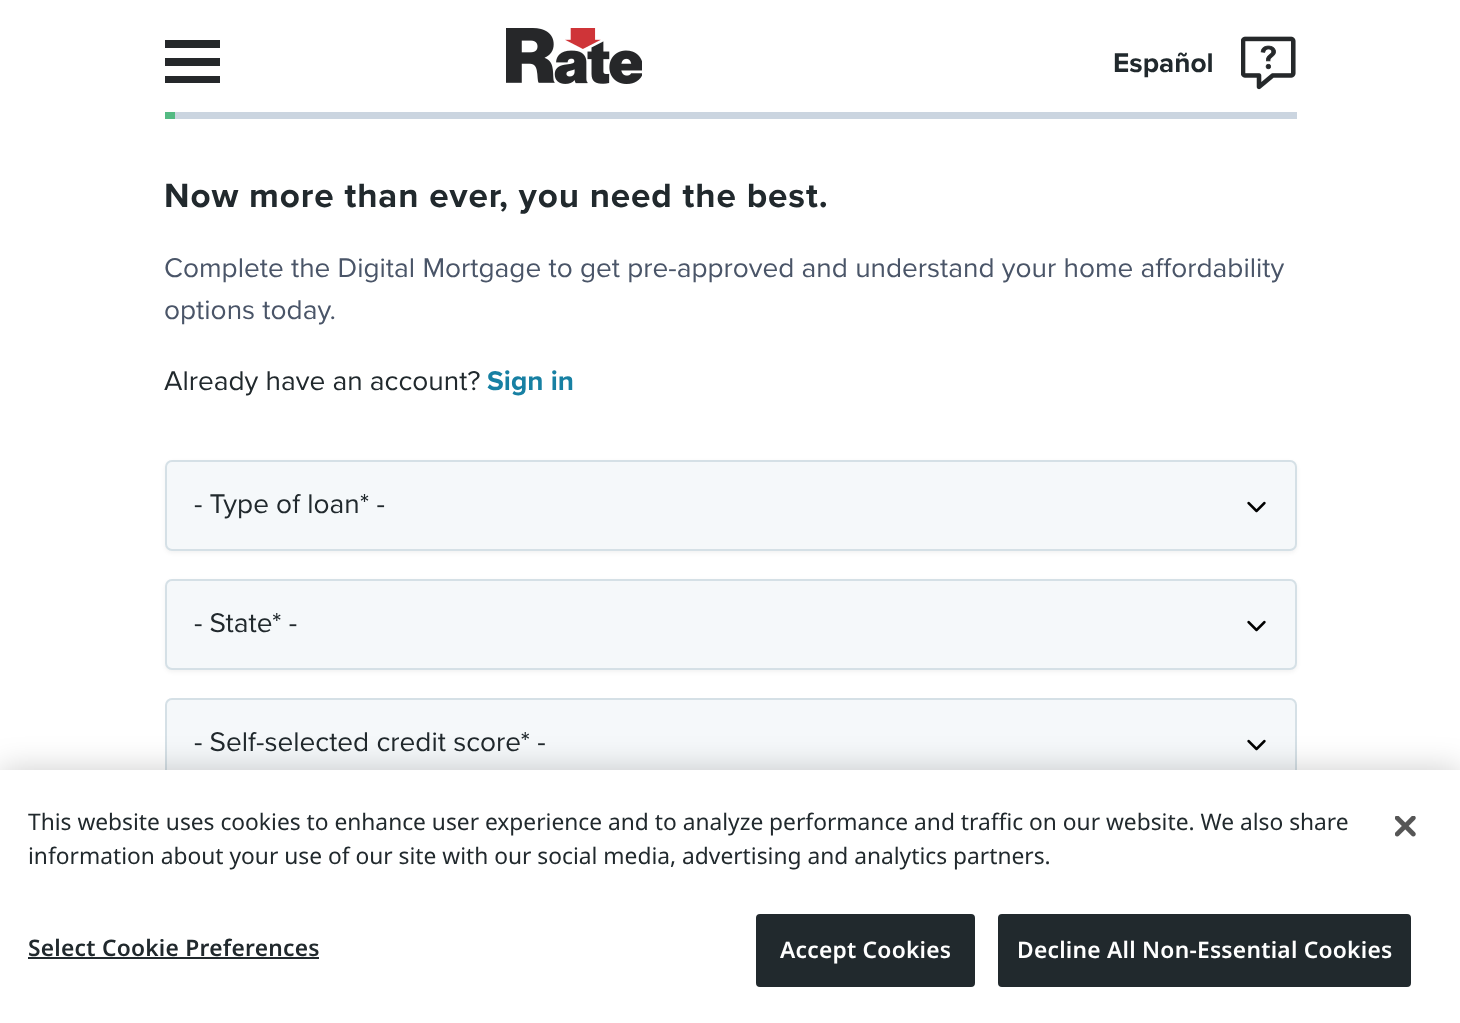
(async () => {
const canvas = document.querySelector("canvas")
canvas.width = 1460
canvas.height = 1023
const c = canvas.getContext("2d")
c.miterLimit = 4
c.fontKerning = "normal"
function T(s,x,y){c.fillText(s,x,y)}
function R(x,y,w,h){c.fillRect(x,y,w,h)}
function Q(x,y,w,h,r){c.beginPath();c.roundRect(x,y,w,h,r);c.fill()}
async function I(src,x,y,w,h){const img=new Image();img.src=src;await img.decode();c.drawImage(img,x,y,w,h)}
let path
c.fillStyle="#fff"
R(0,0,1460,1023)
c.save()
c.beginPath()
c.rect(165,35,56,56)
c.clip()
c.fillStyle="#25282a"
path = new Path2D("M164 48h56v-8h-56zm0 18h56v-8h-56zm0 17h56v-7h-56z")
c.fill(path,"evenodd")
c.restore()
await I("1.png",506,28,136,56)
c.font="28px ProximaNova"
c.fillStyle="#21292d"
T("Español",1113,72)
await I("2.png",1241,36,55,54)
c.fillStyle="#cbd5e0"
R(175,112,1122,7)
c.fillStyle="#54ba83"
R(165,112,10,7)
c.letterSpacing="0.9px"
c.font="35px ProximaNova"
c.fillStyle="#21292d"
T("Now more than ever, you need the best.",164,207)
c.letterSpacing="0px"
c.font="28px 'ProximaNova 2'"
c.fillStyle="#4a5568"
T("Complete the Digital Mortgage to get pre-approved and understand your home affordability",164,277)
T("options today.",164,319)
c.fillStyle="#21292d"
T("Already have an account?",164,390)
c.font="28px ProximaNova"
c.fillStyle="#1780a3"
T("Sign in",487,390)
c.fillStyle="#0000000d"
c.filter="blur(2px)"
c.beginPath()
c.roundRect(165,462,1132,91,7)
c.fill()
c.filter="none"
c.fillStyle="#f5f8fa"
Q(165,460,1132,91,7)
await I("3.png",1247,501,19,12)
c.beginPath()
c.roundRect(166,461,1130,89,6)
c.strokeStyle="#d5e0e6"
c.lineWidth=2
c.stroke()
c.font="28px 'ProximaNova 2'"
c.fillStyle="#21292d"
T("- Type of loan* -",194,513)
c.fillStyle="#0000000d"
c.filter="blur(2px)"
c.beginPath()
c.roundRect(165,581,1132,91,7)
c.fill()
c.filter="none"
c.fillStyle="#f5f8fa"
Q(165,579,1132,91,7)
await I("3.png",1247,620,19,12)
c.beginPath()
c.roundRect(166,580,1130,89,6)
c.stroke()
c.fillStyle="#21292d"
T("- State* -",194,632)
c.fillStyle="#f5f8fa"
Q(165,698,1132,91,7)
await I("3.png",1247,739,19,12)
c.beginPath()
c.roundRect(166,699,1130,89,6)
c.stroke()
c.fillStyle="#21292d"
T("- Self-selected credit score* -",194,751)
c.fillStyle="#00000033"
c.filter="blur(16px)"
c.beginPath()
c.rect(0,770,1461,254)
c.fill()
c.filter="none"
c.fillStyle="#fff"
R(0,770,1460,253)
c.font="22.75px Noto Sans"
c.fillStyle="#21292d"
T("This website uses cookies to enhance user experience and to analyze performance and traffic on our website. We also share",28,830)
T("information about your use of our site with our social media, advertising and analytics partners.",28,864)
c.letterSpacing="0.25px"
c.font="600 22.75px Noto Sans"
T("Select Cookie Preferences",28,956)
R(28,957,291,2)
c.beginPath()
c.roundRect(757,915,217,71,3)
c.fill()
c.strokeStyle="#21292d"
c.stroke()
c.fillStyle="#fff"
T("Accept Cookies",780,958)
c.fillStyle="#21292d"
c.beginPath()
c.roundRect(999,915,411,71,3)
c.fill()
c.stroke()
c.fillStyle="#fff"
T("Decline All Non-Essential Cookies",1017,958)
await I("4.png",1395,816,21,21)
})()
